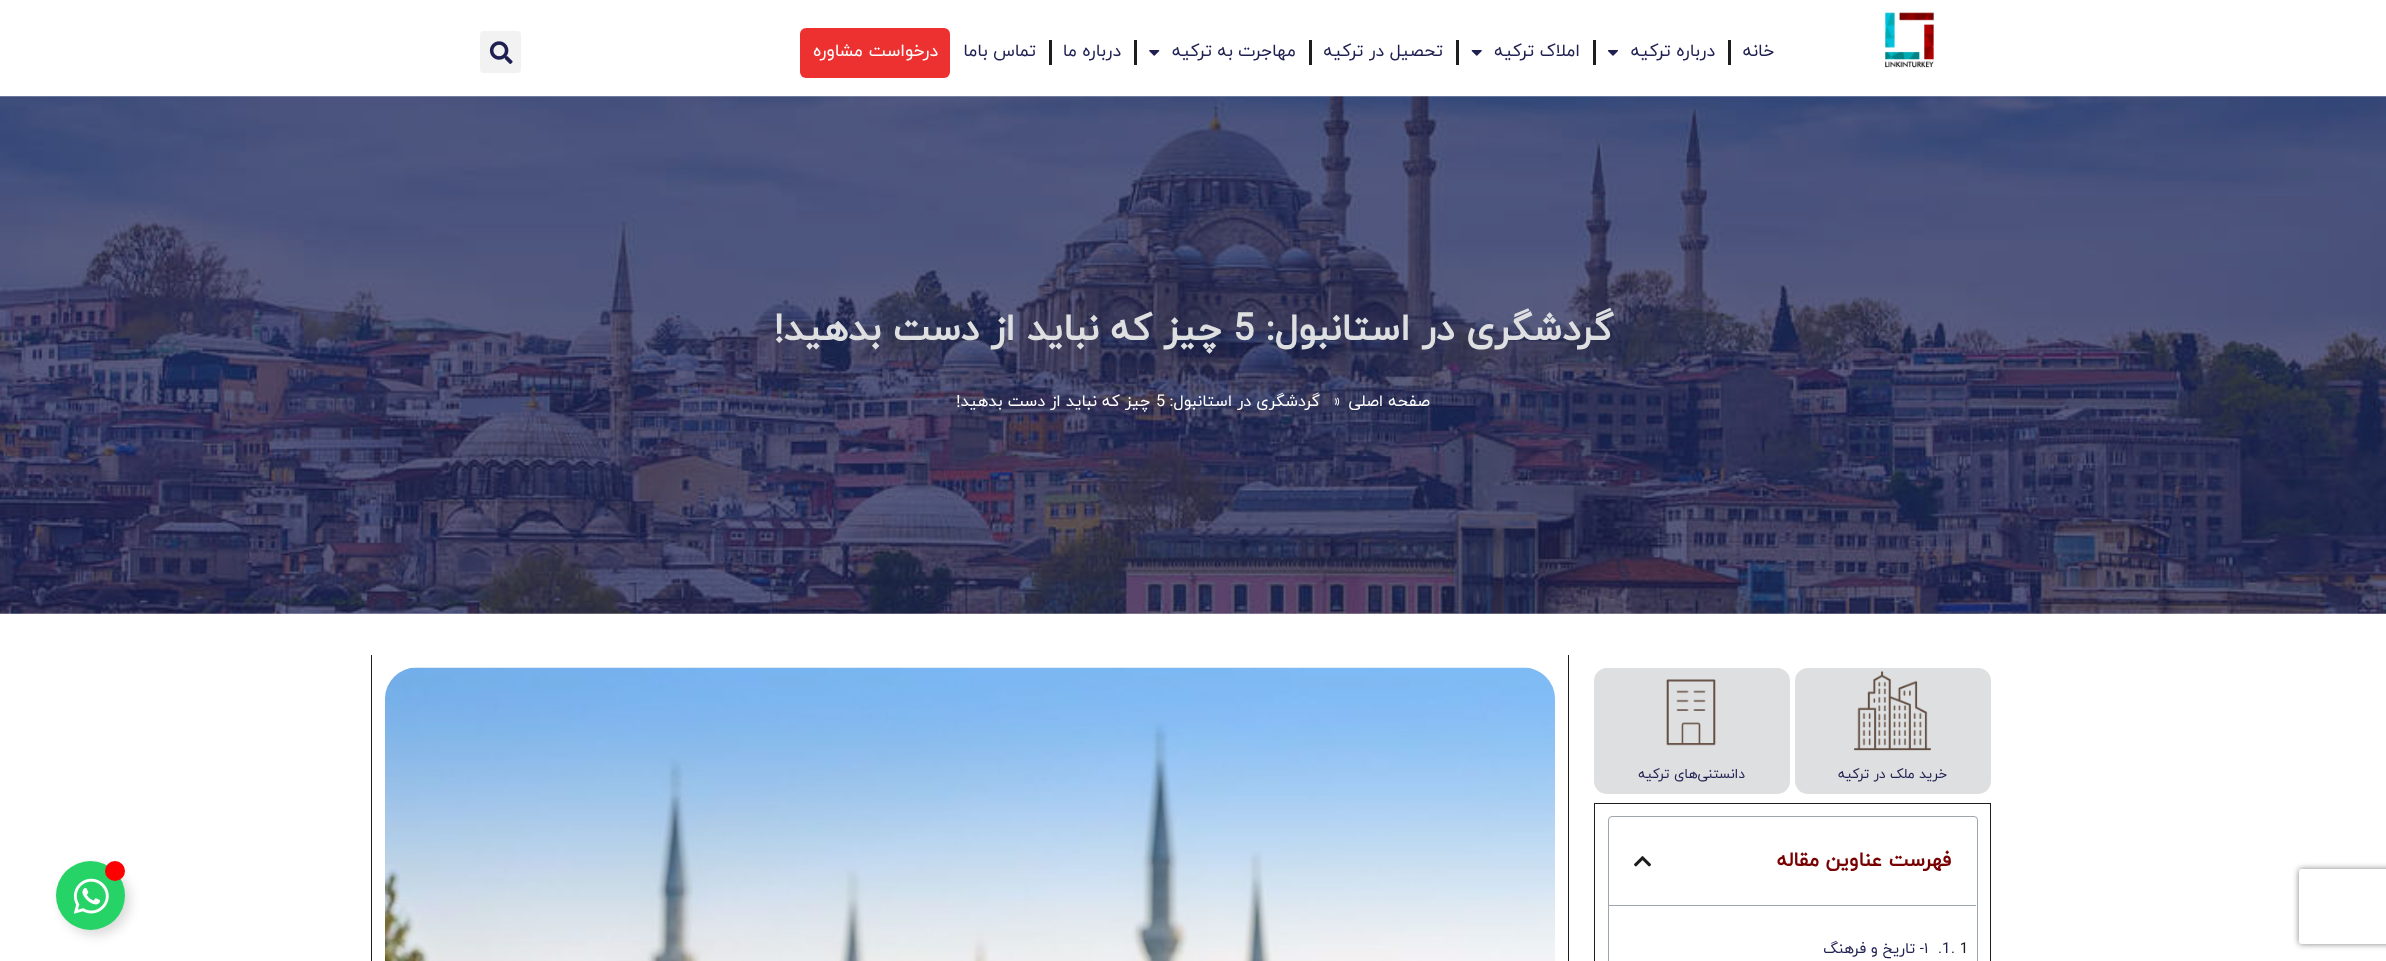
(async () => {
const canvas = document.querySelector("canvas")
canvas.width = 2386
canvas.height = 961
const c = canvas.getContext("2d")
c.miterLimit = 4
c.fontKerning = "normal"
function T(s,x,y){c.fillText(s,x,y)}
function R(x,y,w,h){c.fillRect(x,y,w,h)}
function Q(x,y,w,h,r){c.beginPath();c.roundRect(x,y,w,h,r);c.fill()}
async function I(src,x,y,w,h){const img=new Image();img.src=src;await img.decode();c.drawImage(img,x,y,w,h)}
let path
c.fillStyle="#fff"
R(0,0,2386,961)
await I("1.png",1885,12,49,56)
c.direction="rtl"
c.font="17.5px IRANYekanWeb"
c.fillStyle="#1f2051"
T("خانه",1774,56)
c.fillStyle="#1d1d1f"
R(1728,40,3,25)
c.fillStyle="#1f2051"
T("درباره ترکیه",1715,56)
await I("2.png",1607,50,11,6)
c.fillStyle="#1d1d1f"
R(1593,40,3,25)
c.fillStyle="#1f2051"
T("املاک ترکیه",1580,56)
await I("3.png",1471,50,11,6)
c.fillStyle="#1d1d1f"
R(1456,40,3,25)
c.fillStyle="#1f2051"
T("تحصیل در ترکیه",1443,56)
c.fillStyle="#1d1d1f"
R(1309,40,3,25)
c.fillStyle="#1f2051"
T("مهاجرت به ترکیه",1296,56)
await I("4.png",1149,50,11,6)
c.fillStyle="#1d1d1f"
R(1134,40,3,25)
c.fillStyle="#1f2051"
T("درباره ما",1121,56)
c.fillStyle="#1d1d1f"
R(1049,40,3,25)
c.fillStyle="#1f2051"
T("تماس باما",1036,56)
c.fillStyle="#ed3131"
Q(800,28,150,50,6)
c.fillStyle="#fff"
T("درخواست مشاوره",938,56)
c.fillStyle="#f2f2f2"
Q(480,31,41,42,4)
await I("5.png",489,41,24,23)
await I("6.png",0,96,2386,518)
c.font="bold 37.5px IRANYekanWeb"
c.fillStyle="#dedfe0"
T("گردشگری در استانبول:",1613,340)
c.direction="ltr"
T("5",1233,340)
c.direction="rtl"
T("چیز که نباید از دست بدهید!",1221,340)
c.font="16.25px IRANYekanWeb"
c.fillStyle="#fff"
T("صفحه اصلی",1430,406)
c.direction="ltr"
T("»",1333,406)
c.direction="rtl"
T("گردشگری در استانبول:",1320,406)
c.direction="ltr"
T("5",1156,406)
c.direction="rtl"
T("چیز که نباید از دست بدهید!",1150,406)
c.fillStyle="#dedfe0"
Q(1795,668,196,126,13)
await I("7.png",1854,671,77,80)
c.font="13.75px IRANYekanWeb"
c.fillStyle="#1f2051"
T("خرید ملک در ترکیه",1947,778)
c.fillStyle="#dedfe0"
Q(1594,668,196,126,13)
await I("8.png",1666,679,50,67)
c.fillStyle="#1f2051"
T("دانستنی‌های ترکیه",1745,778)
c.strokeStyle="#1d1d1f"
c.strokeRect(1594.5,803.5,396,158)
c.save()
path = new Path2D("M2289 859h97v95h-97zm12.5 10h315c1.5 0 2.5 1 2.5 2.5v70c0 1.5-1 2.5-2.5 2.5h-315c-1.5 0-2.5-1-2.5-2.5v-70c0-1.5 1-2.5 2.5-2.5z")
c.clip(path,"evenodd")
c.fillStyle="#808080"
c.filter="blur(3px)"
c.beginPath()
c.roundRect(2299,869,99,75,2.5)
c.fill()
c.filter="none"
c.restore()
c.beginPath()
c.roundRect(1608.5,816.5,369,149,3.5)
c.strokeStyle="#9da5ae"
c.stroke()
c.fillStyle="#9da5ae"
R(1609,905,367,1)
c.font="bold 20px IRANYekanWeb"
c.fillStyle="#780000"
T("فهرست عناوین مقاله",1951,866)
await I("9.png",1634,856,17,11)
c.direction="ltr"
c.font="15px IRANYekanWeb"
c.fillStyle="#1d1d1f"
T(". 1",1951,953)
c.fillStyle="#1f2051"
T("1",1942,953)
T(".",1938,953)
T("۱",1924,953)
c.direction="rtl"
T("- تاریخ و فرهنگ",1924,953)
c.fillStyle="#1d1d1f"
R(1568,655,1,306)
R(371,655,1,306)
await I("10.png",385,667,1170,294)
c.fillStyle="#00000026"
c.filter="blur(6px)"
c.beginPath()
c.roundRect(61,866,69,69,34.5)
c.fill()
c.filter="none"
c.fillStyle="#25d366"
c.beginPath()
c.arc(90.5,895.5,34.5,0,7)
c.fill()
await I("11.png",73,878,36,36)
c.fillStyle="#f00"
c.beginPath()
c.arc(115,871,10,0,7)
c.fill()
})()
